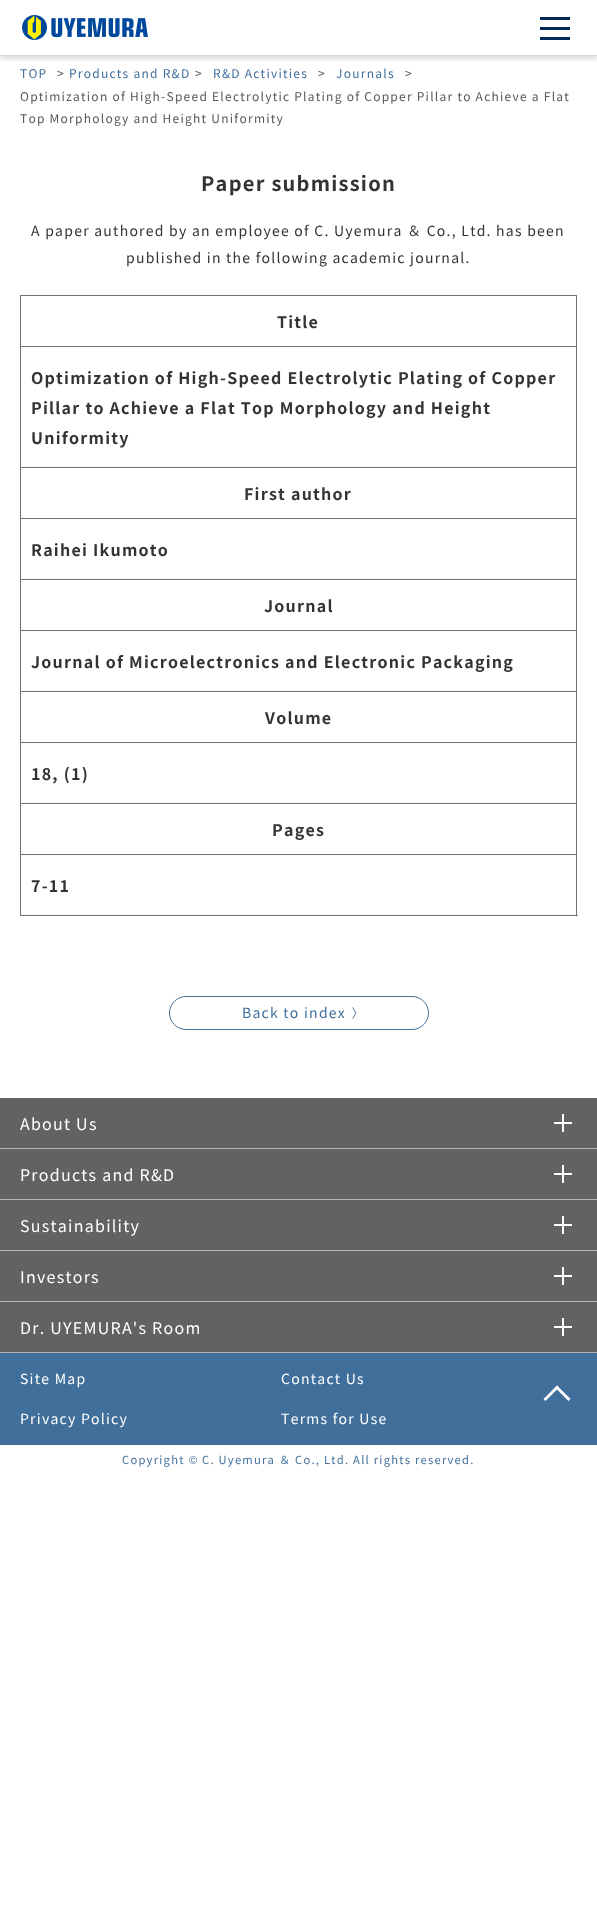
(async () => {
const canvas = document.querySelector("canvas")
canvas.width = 597
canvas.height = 1926
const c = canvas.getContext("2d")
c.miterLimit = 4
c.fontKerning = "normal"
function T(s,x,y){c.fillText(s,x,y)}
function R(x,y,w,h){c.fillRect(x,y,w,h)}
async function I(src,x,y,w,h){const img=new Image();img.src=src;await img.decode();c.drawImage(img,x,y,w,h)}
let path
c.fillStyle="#fff"
R(0,0,597,1926)
c.save()
c.beginPath()
c.rect(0,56,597,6)
c.clip()
c.fillStyle="#00000026"
c.filter="blur(3px)"
c.beginPath()
c.rect(0,3,597,56)
c.fill()
c.filter="none"
c.restore()
c.fillStyle="#d9d9d9"
R(0,55,597,1)
await I("1.png",22,15,126,25)
c.fillStyle="#002958"
R(540,27,30,3)
R(540,17,30,3)
R(540,37,30,3)
c.letterSpacing="1.25px"
c.font="12px Noto Sans JP"
c.fillStyle="#416f9c"
T("TOP",20,78)
c.fillStyle="#585858"
T(">",57,78)
c.fillStyle="#416f9c"
T("Products and R&D",69,78)
c.fillStyle="#585858"
T(">",195,78)
c.fillStyle="#416f9c"
T("R&D Activities",213,78)
c.fillStyle="#585858"
T(">",318,78)
c.fillStyle="#416f9c"
T("Journals",336,78)
c.fillStyle="#585858"
T(">",405,78)
T("Optimization of High-Speed Electrolytic Plating of Copper Pillar to Achieve a Flat",20,101)
T("Top Morphology and Height Uniformity",20,123)
c.font="bold 20px Noto Sans JP"
c.fillStyle="#333"
T("Paper submission",201,191)
c.font="14px Noto Sans JP"
T("A paper authored by an employee of C. Uyemura ＆ Co., Ltd. has been",31,236)
T("published in the following academic journal.",126,263)
c.fillStyle="#707070"
R(20,295,557,1)
R(576,295,1,51)
R(20,295,1,51)
c.font="bold 16px Noto Sans JP"
c.fillStyle="#333"
T("Title",277,328)
c.fillStyle="#707070"
R(20,346,557,1)
R(576,346,1,121)
R(20,346,1,121)
c.fillStyle="#333"
T("Optimization of High-Speed Electrolytic Plating of Copper",31,384)
T("Pillar to Achieve a Flat Top Morphology and Height",31,414)
T("Uniformity",31,444)
c.fillStyle="#707070"
R(20,467,557,1)
R(576,467,1,51)
R(20,467,1,51)
c.fillStyle="#333"
T("First author",244,500)
c.fillStyle="#707070"
R(20,518,557,1)
R(576,518,1,61)
R(20,518,1,61)
c.fillStyle="#333"
T("Raihei Ikumoto",31,556)
c.fillStyle="#707070"
R(20,579,557,1)
R(576,579,1,51)
R(20,579,1,51)
c.fillStyle="#333"
T("Journal",264,612)
c.fillStyle="#707070"
R(20,630,557,1)
R(576,630,1,61)
R(20,630,1,61)
c.fillStyle="#333"
T("Journal of Microelectronics and Electronic Packaging",31,668)
c.fillStyle="#707070"
R(20,691,557,1)
R(576,691,1,51)
R(20,691,1,51)
c.fillStyle="#333"
T("Volume",265,724)
c.fillStyle="#707070"
R(20,742,557,1)
R(576,742,1,61)
R(20,742,1,61)
c.fillStyle="#333"
T("18, (1)",31,780)
c.fillStyle="#707070"
R(20,915,558,1)
R(20,803,557,1)
R(576,803,1,51)
R(20,803,1,51)
c.fillStyle="#333"
T("Pages",272,836)
c.fillStyle="#707070"
R(20,854,557,1)
R(576,854,1,61)
R(20,854,1,61)
c.fillStyle="#333"
T("7-11",31,892)
c.beginPath()
c.roundRect(169.5,996.5,259,33,16.5)
c.strokeStyle="#416f9c"
c.stroke()
c.font="14px Noto Sans JP"
c.fillStyle="#416f9c"
T("Back to index",242,1018)
await I("2.png",352,1007,5,12)
c.fillStyle="#626262"
R(0,1098,597,254)
c.fillStyle="#b4b4b4"
R(0,1148,597,1)
c.font="16px Noto Sans JP"
c.fillStyle="#fff"
T("About Us",20,1130)
R(562,1114,2,18)
R(554,1122,18,2)
c.fillStyle="#b4b4b4"
R(0,1199,597,1)
c.fillStyle="#fff"
T("Products and R&D",20,1181)
R(562,1165,2,18)
R(554,1173,18,2)
c.fillStyle="#b4b4b4"
R(0,1250,597,1)
c.fillStyle="#fff"
T("Sustainability",20,1232)
R(562,1216,2,18)
R(554,1224,18,2)
c.fillStyle="#b4b4b4"
R(0,1301,597,1)
c.fillStyle="#fff"
T("Investors",20,1283)
R(562,1267,2,18)
R(554,1275,18,2)
c.fillStyle="#b4b4b4"
R(0,1352,597,1)
c.fillStyle="#fff"
T("Dr. UYEMURA's Room",20,1334)
R(562,1318,2,18)
R(554,1326,18,2)
c.fillStyle="#416f9c"
R(0,1353,597,92)
c.font="14px Noto Sans JP"
c.fillStyle="#fff"
T("Site Map",20,1384)
T("Contact Us",281,1384)
T("Privacy Policy",20,1424)
T("Terms for Use",281,1424)
path = new Path2D("M557 1385.5l13.5 13.5l-2 2l-13.5-13.5z")
c.fill(path)
path = new Path2D("M557 1385.5l2 2l-13.5 13.5l-2-2z")
c.fill(path)
c.font="11.2px Noto Sans JP"
c.fillStyle="#416f9c"
T("Copyright",122,1464)
c.font="11.2px Liberation Sans"
T("©",189,1464)
c.font="11.2px Noto Sans JP"
T("C. Uyemura ＆ Co., Ltd. All rights reserved.",202,1464)
})()
